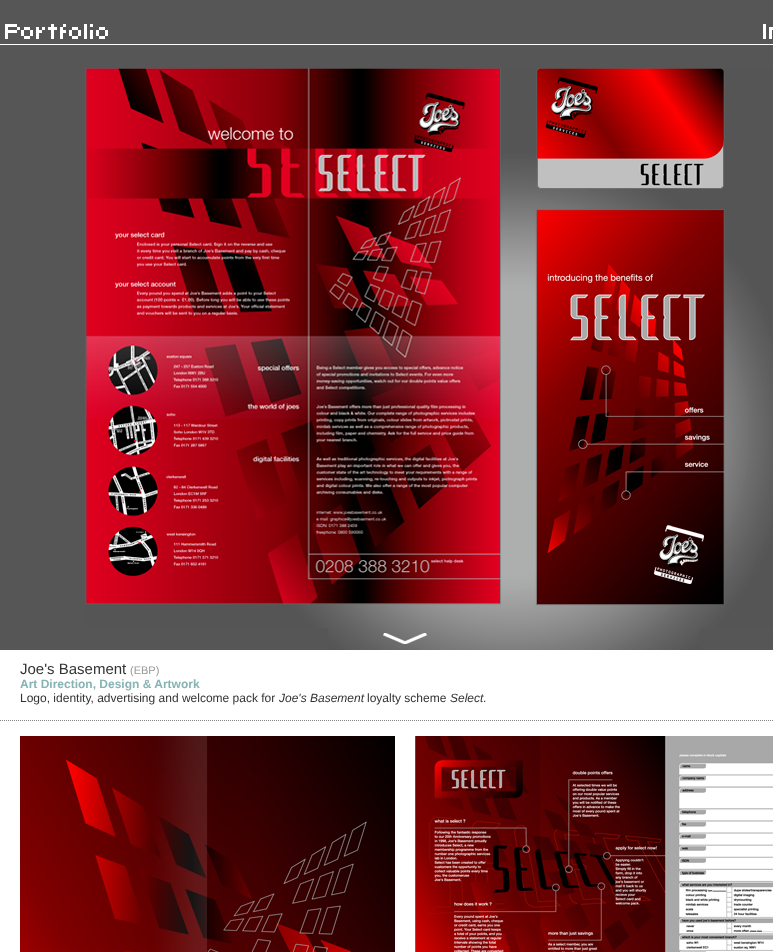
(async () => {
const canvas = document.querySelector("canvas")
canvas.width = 773
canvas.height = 952
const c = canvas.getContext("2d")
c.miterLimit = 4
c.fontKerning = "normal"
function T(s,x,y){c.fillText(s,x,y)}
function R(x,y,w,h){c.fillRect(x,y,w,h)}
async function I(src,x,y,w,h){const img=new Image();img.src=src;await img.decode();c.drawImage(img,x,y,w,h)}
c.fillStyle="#fff"
R(0,0,773,952)
c.fillStyle="#565656"
R(0,0,773,650)
await I("1.png",0,24,600,21)
await I("2.png",600,24,173,21)
await I("3.png",85,68,688,560)
await I("4.png",328,628,372,22)
await I("5.png",383,633,44,11)
c.font="15px Liberation Sans"
c.fillStyle="#333"
T("Joe's Basement",20,674)
c.font="11px Liberation Sans"
c.fillStyle="#999"
T("(EBP)",130,674)
c.font="bold 12px Liberation Sans"
c.fillStyle="#86b3b3"
T("Art Direction, Design & Artwork",20,688)
c.font="12px Liberation Sans"
c.fillStyle="#333"
T("Logo, identity, advertising and welcome pack for",20,702)
c.font="italic 12px Liberation Sans"
T("Joe's Basement",279,702)
c.font="12px Liberation Sans"
T("loyalty scheme",367,702)
c.font="italic 12px Liberation Sans"
T("Select",450,702)
c.font="12px Liberation Sans"
T(".",483,702)
await I("6.png",0,720,773,1)
await I("7.png",20,736,375,216)
await I("8.png",415,736,358,216)
})()
